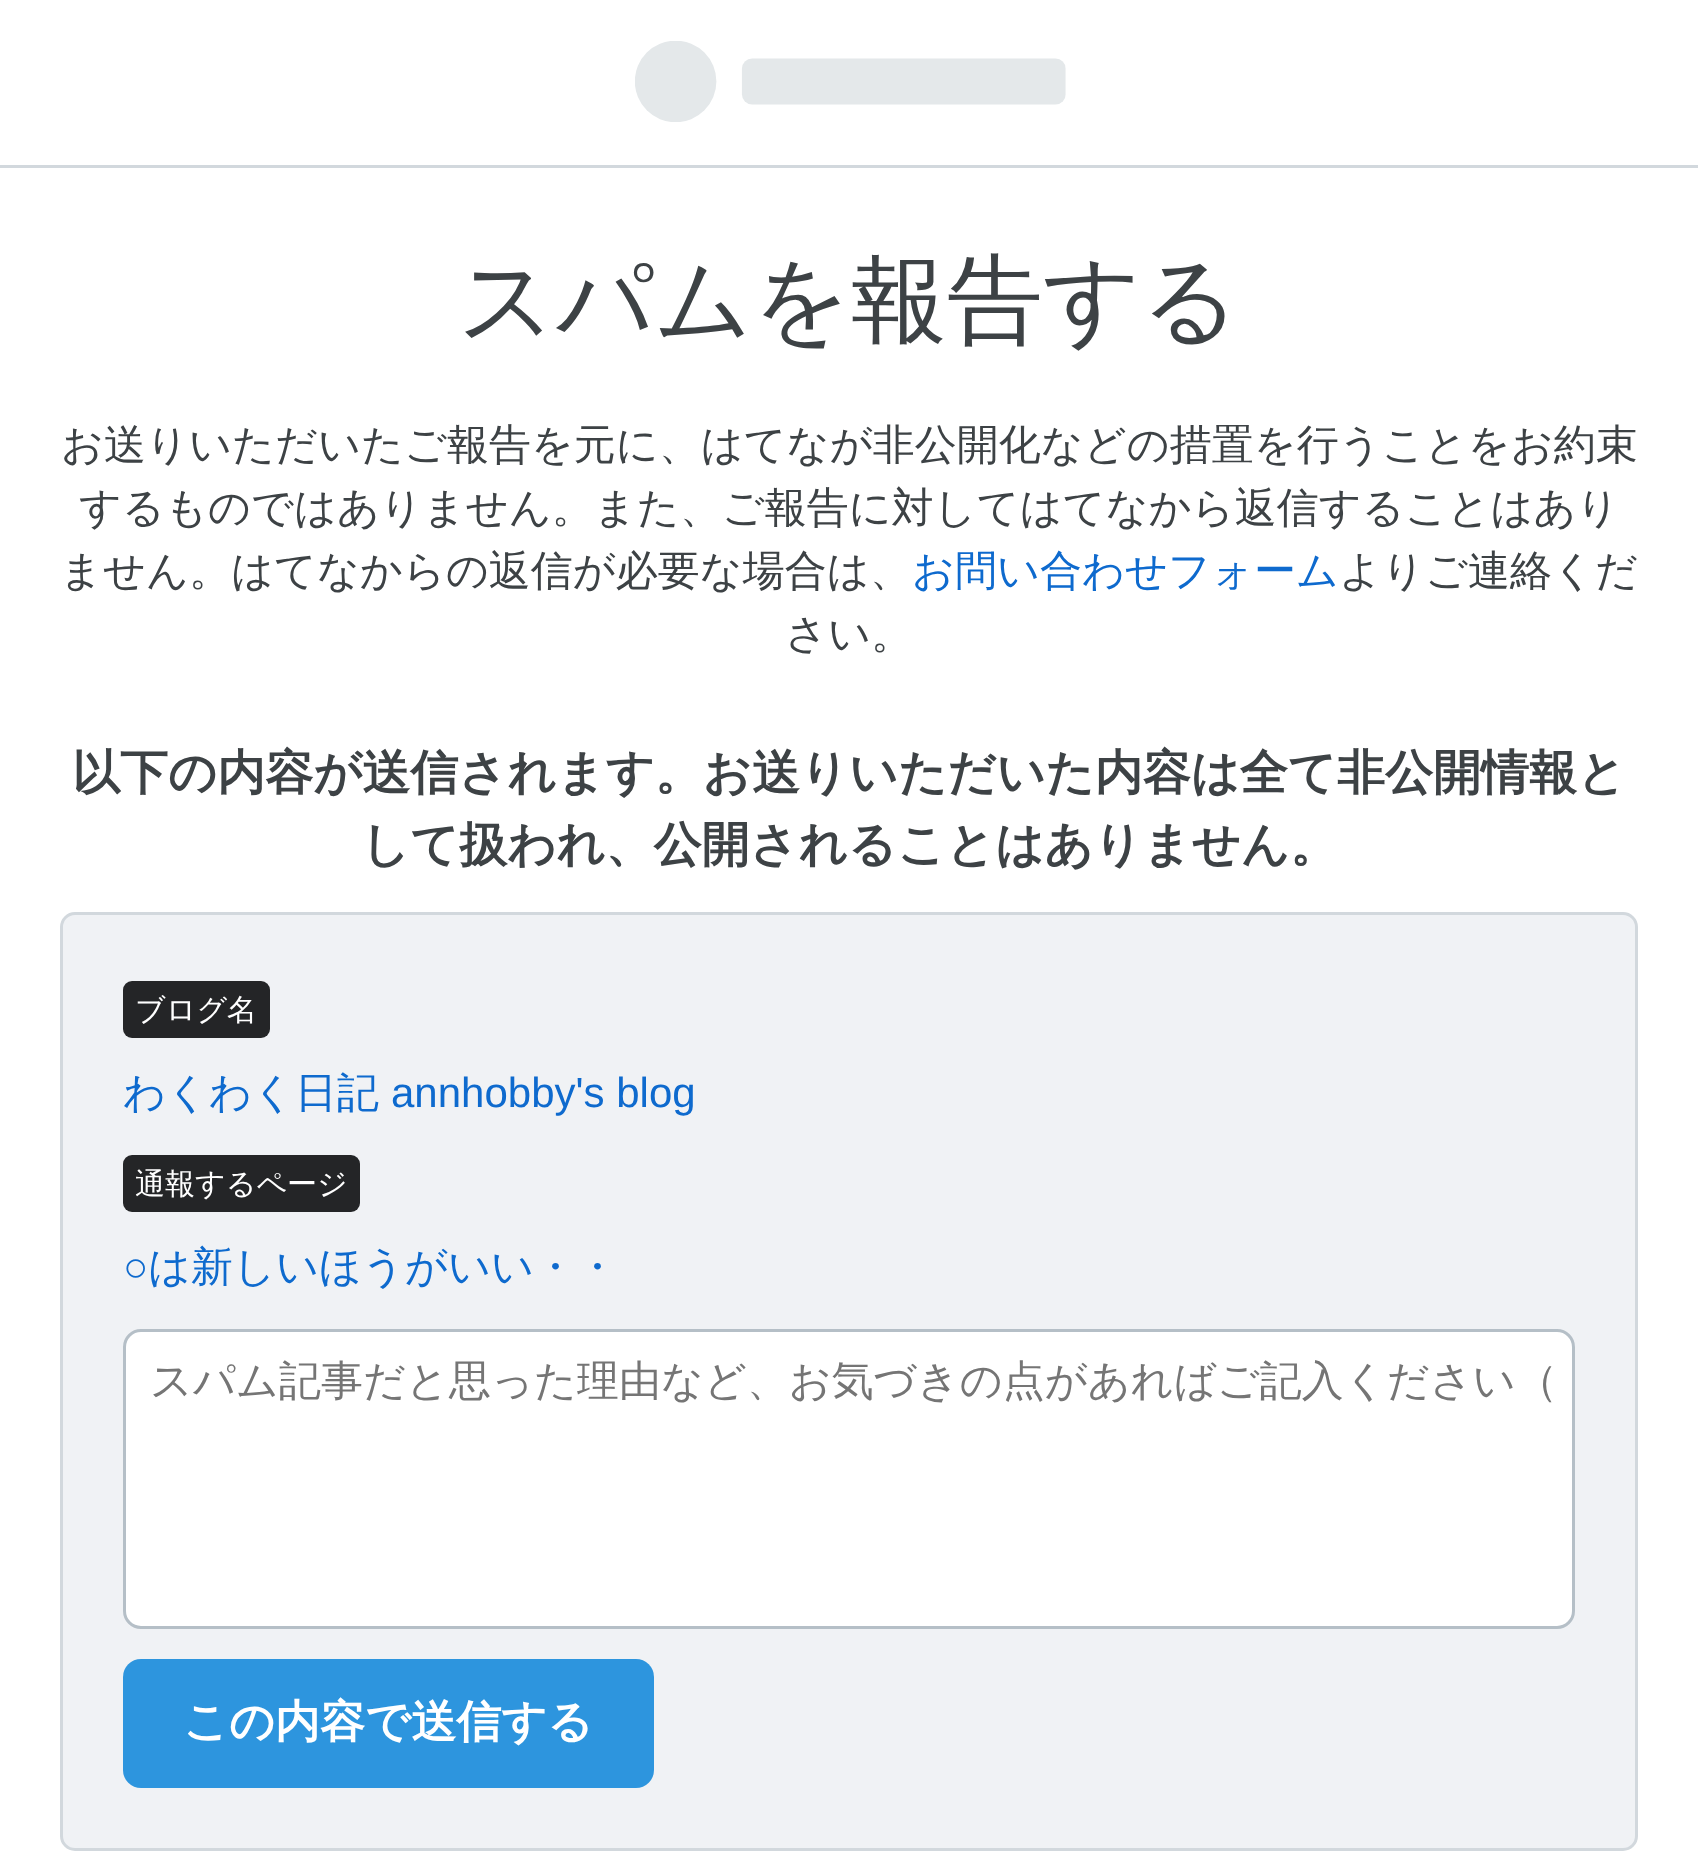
(async () => {
const canvas = document.querySelector("canvas")
canvas.width = 1698
canvas.height = 1871
const c = canvas.getContext("2d")
c.miterLimit = 4
c.fontKerning = "normal"
function T(s,x,y){c.fillText(s,x,y)}
function R(x,y,w,h){c.fillRect(x,y,w,h)}
function Q(x,y,w,h,r){c.beginPath();c.roundRect(x,y,w,h,r);c.fill()}
async function I(src,x,y,w,h){const img=new Image();img.src=src;await img.decode();c.drawImage(img,x,y,w,h)}
c.fillStyle="#fff"
R(0,0,1698,1871)
c.fillStyle="#d2d8dd"
R(0,165,1698,3)
await I("1.png",635,41,431,81)
c.font="500 96px WenQuanYi Zen Hei"
c.fillStyle="#3d4245"
T("スパムを報告する",458,333)
c.font="500 42px WenQuanYi Zen Hei"
T("お送りいただいたご報告を元に、はてなが非公開化などの措置を行うことをお約束",61,459)
T("するものではありません。また、ご報告に対してはてなから返信することはあり",79,522)
T("ません。はてなからの返信が必要な場合は、",60,585)
c.fillStyle="#0e6ace"
T("お問い合わせフォーム",912,585)
c.fillStyle="#3d4245"
T("よりご連絡くだ",1339,585)
T("さい。",785,648)
c.font="bold 48px WenQuanYi Zen Hei"
T("以下の内容が送信されます。お送りいただいた内容は全て非公開情報と",72,789)
T("して扱われ、公開されることはありません。",361,861)
c.fillStyle="#f0f2f5"
c.beginPath()
c.roundRect(61.5,913.5,1575,936,13.5)
c.fill()
c.strokeStyle="#d2d8dd"
c.lineWidth=3
c.stroke()
c.fillStyle="#242527"
Q(123,981,147,57,9)
c.font="500 30px WenQuanYi Zen Hei"
c.fillStyle="#fff"
T("ブログ名",135,1020)
c.font="500 42px WenQuanYi Zen Hei"
c.fillStyle="#0e6ace"
T("わくわく日記",123,1107)
c.font="42px Liberation Sans"
T("annhobby's blog",391,1107)
c.fillStyle="#242527"
Q(123,1155,237,57,9)
c.font="500 30px WenQuanYi Zen Hei"
c.fillStyle="#fff"
T("通報するページ",135,1194)
c.font="42px Liberation Sans"
c.fillStyle="#0e6ace"
T("○",123,1281)
c.font="500 42px WenQuanYi Zen Hei"
T("は新しいほうがいい・・",148,1281)
c.fillStyle="#fff"
c.beginPath()
c.roundRect(124.5,1330.5,1449,297,16.5)
c.fill()
c.strokeStyle="#b5bfc7"
c.stroke()
c.fillStyle="#757575"
T("スパム記事だと思った理由など、お気づきの点があればご記入ください（",150,1395)
c.fillStyle="#2d95de"
Q(123,1659,531,129,18)
c.font="bold 45px WenQuanYi Zen Hei"
c.fillStyle="#fff"
T("この内容で送信する",183,1737)
})()
